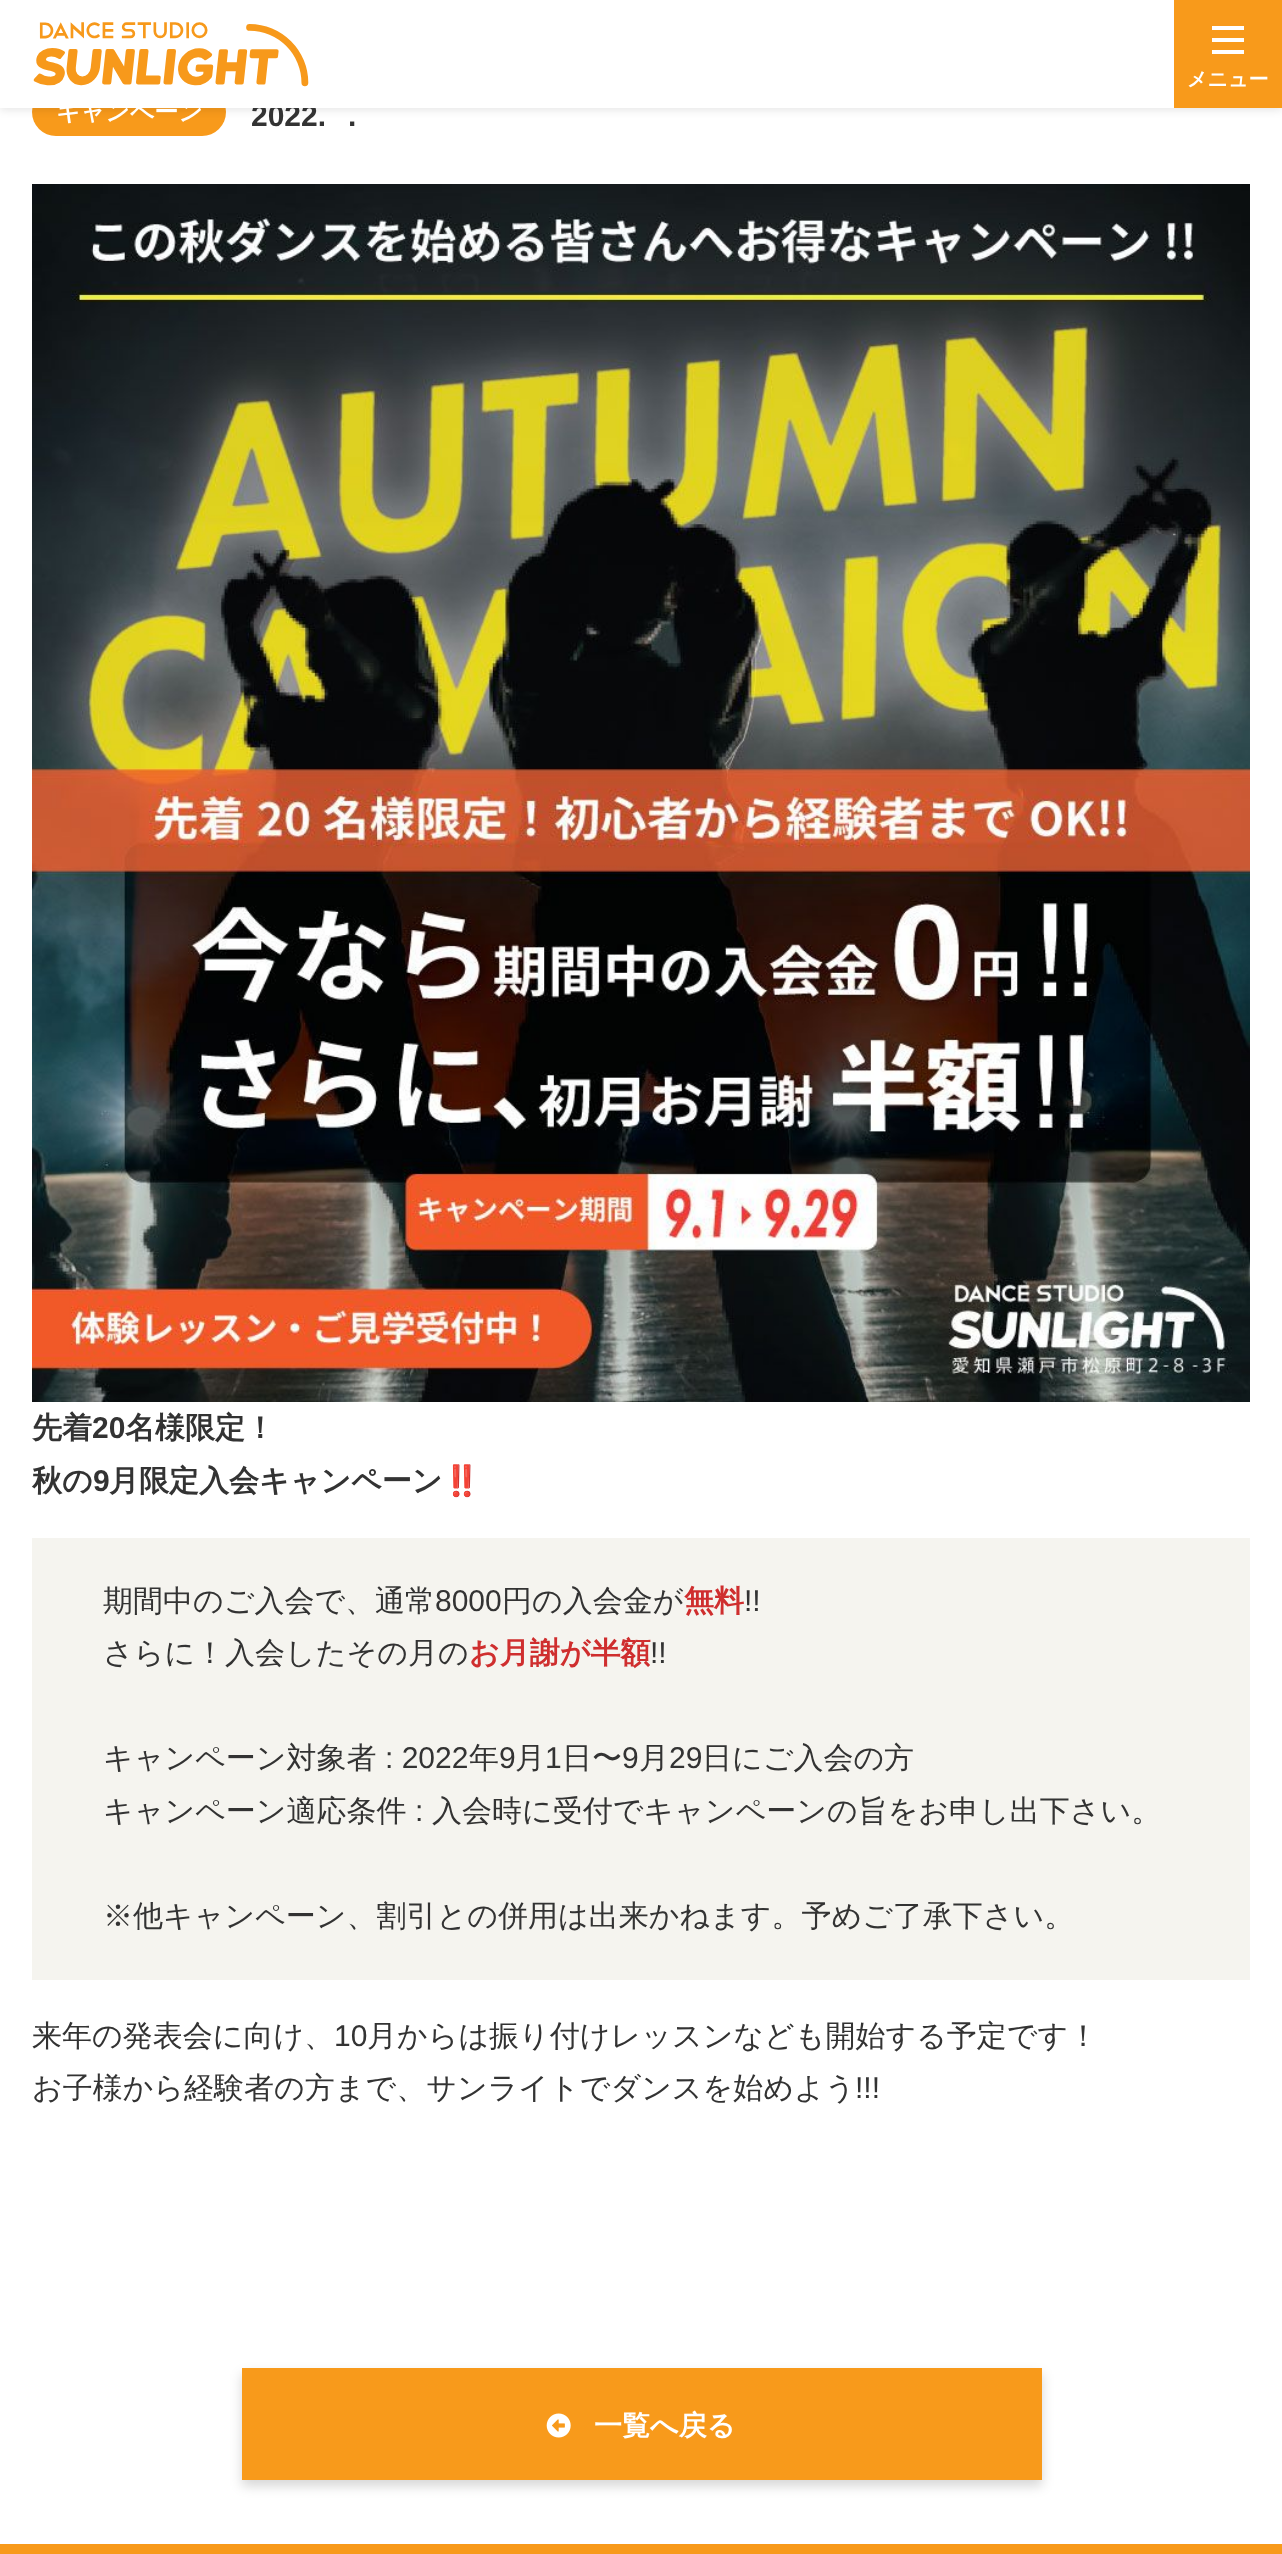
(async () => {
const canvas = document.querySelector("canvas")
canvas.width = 1282
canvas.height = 2554
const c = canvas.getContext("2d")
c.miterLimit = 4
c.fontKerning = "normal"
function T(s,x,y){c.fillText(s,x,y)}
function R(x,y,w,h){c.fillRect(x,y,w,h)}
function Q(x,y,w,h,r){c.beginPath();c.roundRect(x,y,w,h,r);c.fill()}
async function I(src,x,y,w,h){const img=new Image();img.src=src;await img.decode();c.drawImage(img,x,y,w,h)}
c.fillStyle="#fff"
R(0,0,1282,2554)
c.fillStyle="#f89a1b"
Q(32,88,194,48,24)
c.fillStyle="#0000001a"
c.filter="blur(4px)"
c.beginPath()
c.rect(0,2,1282,108)
c.fill()
c.filter="none"
c.font="bold 30px Liberation Sans"
c.fillStyle="#333"
T("2022.",251,126)
c.fillStyle="#fff"
R(0,0,1174,108)
await I("1.png",33,22,276,65)
c.fillStyle="#f89a1b"
R(1174,0,108,108)
c.fillStyle="#fff"
R(1212,26,32,4)
R(1212,38,32,4)
R(1212,50,32,4)
c.font="bold 20px WenQuanYi Zen Hei"
T("メニュー",1187,86)
c.font="bold 24px WenQuanYi Zen Hei"
T("キャンペーン",56,120)
c.font="bold 30px Liberation Sans"
c.fillStyle="#333"
T(".",348,126)
await I("2.png",32,184,1218,1218)
c.font="bold 30px WenQuanYi Zen Hei"
T("先着",32,1438)
c.font="bold 30px Liberation Sans"
T("20",92,1438)
c.font="bold 30px WenQuanYi Zen Hei"
T("名様限定！",125,1438)
T("秋の",32,1491)
c.font="bold 30px Liberation Sans"
T("9",93,1491)
c.font="bold 30px WenQuanYi Zen Hei"
T("月限定入会キャンペーン",109,1491)
c.font="bold 30px Noto Color Emoji"
T("‼️",443,1491)
c.fillStyle="#f5f4ef"
R(32,1538,1218,442)
c.font="500 30px WenQuanYi Zen Hei"
c.fillStyle="#333"
T("期間中のご入会で、通常",103,1611)
c.font="30px Liberation Sans"
T("8000",435,1611)
c.font="500 30px WenQuanYi Zen Hei"
T("円の入会金が",502,1611)
c.font="bold 30px WenQuanYi Zen Hei"
c.fillStyle="#cf2e2e"
T("無料",684,1611)
c.font="30px Liberation Sans"
c.fillStyle="#333"
T("!!",744,1611)
c.font="500 30px WenQuanYi Zen Hei"
T("さらに！入会したその月の",103,1663)
c.font="bold 30px WenQuanYi Zen Hei"
c.fillStyle="#cf2e2e"
T("お月謝が半額",469,1663)
c.font="30px Liberation Sans"
c.fillStyle="#333"
T("!!",650,1663)
c.font="500 30px WenQuanYi Zen Hei"
T("キャンペーン対象者",103,1768)
c.font="30px Liberation Sans"
T(": 2022",385,1768)
c.font="500 30px WenQuanYi Zen Hei"
T("年",469,1768)
c.font="30px Liberation Sans"
T("9",499,1768)
c.font="500 30px WenQuanYi Zen Hei"
T("月",515,1768)
c.font="30px Liberation Sans"
T("1",545,1768)
c.font="500 30px WenQuanYi Zen Hei"
T("日〜",562,1768)
c.font="30px Liberation Sans"
T("9",622,1768)
c.font="500 30px WenQuanYi Zen Hei"
T("月",639,1768)
c.font="30px Liberation Sans"
T("29",669,1768)
c.font="500 30px WenQuanYi Zen Hei"
T("日にご入会の方",702,1768)
T("キャンペーン適応条件",103,1821)
c.font="30px Liberation Sans"
T(":",415,1821)
c.font="500 30px WenQuanYi Zen Hei"
T("入会時に受付でキャンペーンの旨をお申し出下さい。",432,1821)
T("※他キャンペーン、割引との併用は出来かねます。予めご了承下さい。",103,1926)
T("来年の発表会に向け、",32,2046)
c.font="30px Liberation Sans"
T("10",334,2046)
c.font="500 30px WenQuanYi Zen Hei"
T("月からは振り付けレッスンなども開始する予定です！",367,2046)
T("お子様から経験者の方まで、サンライトでダンスを始めよう",32,2098)
c.font="30px Liberation Sans"
T("!!!",855,2098)
c.fillStyle="#00000029"
c.filter="blur(6px)"
c.beginPath()
c.rect(242,2374,800,112)
c.fill()
c.filter="none"
c.fillStyle="#f89a1b"
R(242,2368,800,112)
await I("3.png",546,2413,25,25)
c.font="bold 28px WenQuanYi Zen Hei"
c.fillStyle="#fff"
T("一覧へ戻る",594,2435)
c.fillStyle="#f89a1b"
R(0,2544,1282,10)
})()
